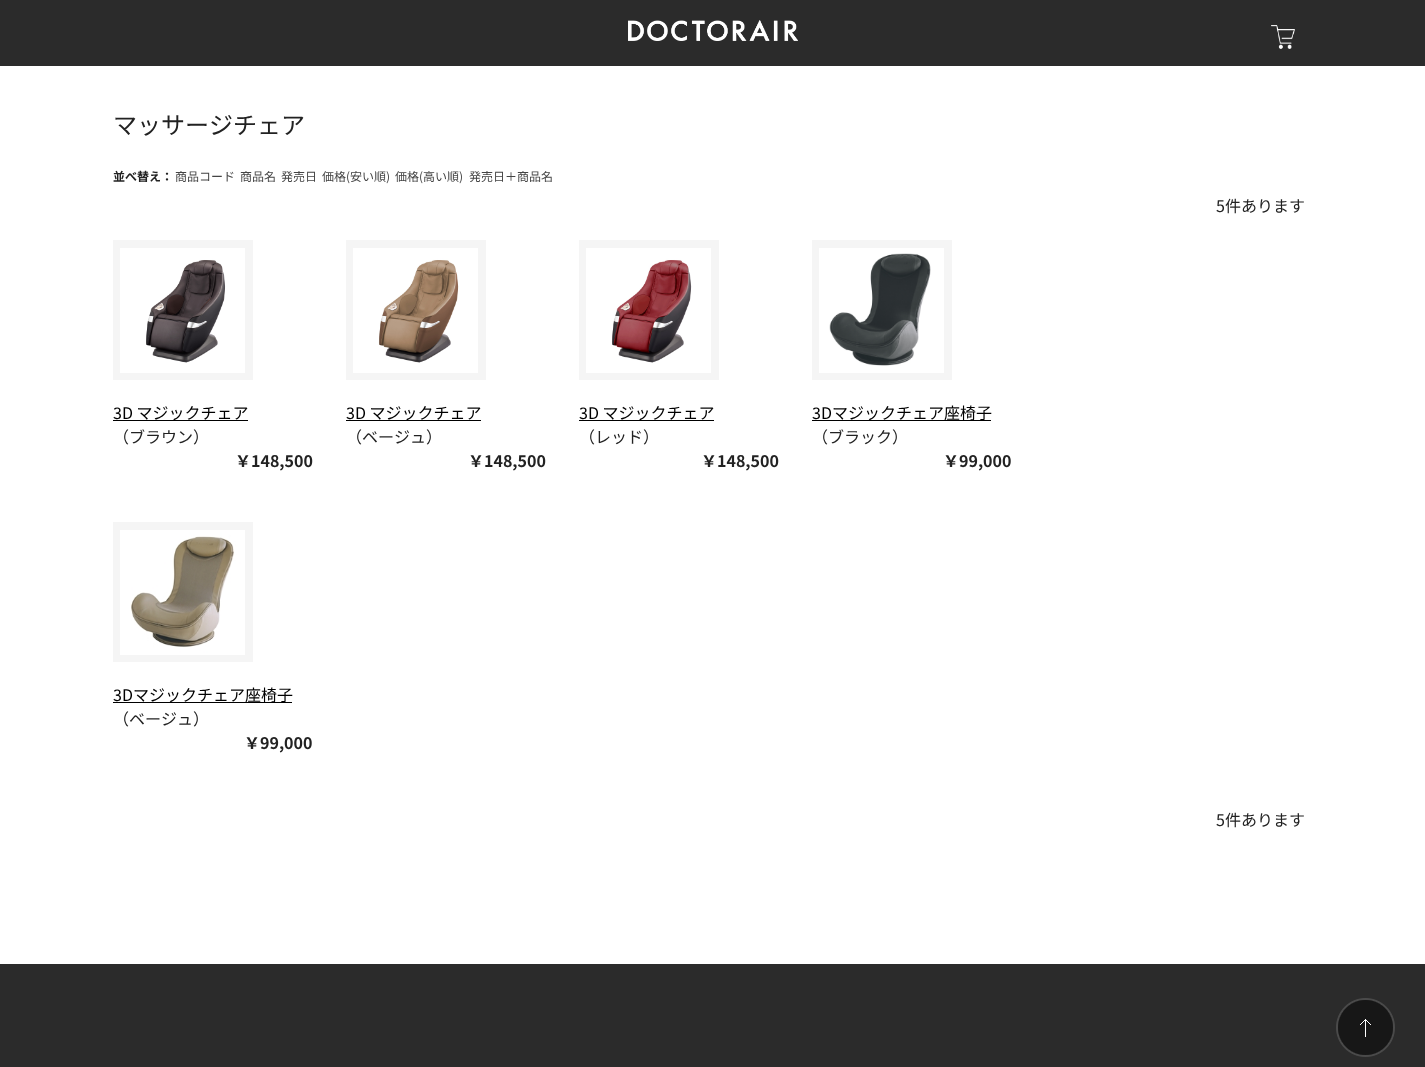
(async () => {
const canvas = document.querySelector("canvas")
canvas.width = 1425
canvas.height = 1067
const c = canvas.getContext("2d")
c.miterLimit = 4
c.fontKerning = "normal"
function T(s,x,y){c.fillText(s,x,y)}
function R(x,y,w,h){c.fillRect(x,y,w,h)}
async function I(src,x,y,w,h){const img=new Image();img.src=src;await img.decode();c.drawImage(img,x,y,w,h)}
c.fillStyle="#fff"
R(0,0,1425,1067)
c.fillStyle="#2b2b2b"
R(0,0,1425,66)
await I("1.png",628,20,170,21)
await I("2.png",1271,25,24,24)
c.font="24px Noto Sans JP"
c.fillStyle="#222"
T("マッサージチェア",113,134)
c.font="bold 12px Noto Sans JP"
T("並べ替え：",113,181)
c.font="12px Noto Sans JP"
c.fillStyle="#444"
T("商品コード",175,181)
T("商品名",240,181)
T("発売日",281,181)
T("価格(安い順)",322,181)
T("価格(高い順)",395,181)
T("発売日＋商品名",469,181)
c.font="16px Noto Sans JP"
c.fillStyle="#222"
T("5件あります",1216,212)
c.fillStyle="#f5f5f5"
R(113,240,140,140)
await I("3.png",120,248,125,125)
c.fillStyle="#000"
R(113,420,135,1)
T("3D マジックチェア",113,419)
c.fillStyle="#222"
T("（ブラウン）",113,443)
c.font="bold 16px Noto Sans JP"
T("￥148,500",235,467)
c.fillStyle="#f5f5f5"
R(346,240,140,140)
await I("4.png",353,248,125,125)
c.fillStyle="#000"
R(346,420,135,1)
c.font="16px Noto Sans JP"
T("3D マジックチェア",346,419)
c.fillStyle="#222"
T("（ベージュ）",346,443)
c.font="bold 16px Noto Sans JP"
T("￥148,500",468,467)
c.fillStyle="#f5f5f5"
R(579,240,140,140)
await I("5.png",586,248,125,125)
c.fillStyle="#000"
R(579,420,135,1)
c.font="16px Noto Sans JP"
T("3D マジックチェア",579,419)
c.fillStyle="#222"
T("（レッド）",579,443)
c.font="bold 16px Noto Sans JP"
T("￥148,500",701,467)
c.fillStyle="#f5f5f5"
R(812,240,140,140)
await I("6.png",819,248,125,125)
c.fillStyle="#000"
R(812,420,179,1)
c.font="16px Noto Sans JP"
T("3Dマジックチェア座椅子",812,419)
c.fillStyle="#222"
T("（ブラック）",812,443)
c.font="bold 16px Noto Sans JP"
T("￥99,000",943,467)
c.fillStyle="#f5f5f5"
R(113,522,140,140)
await I("7.png",120,530,125,125)
c.fillStyle="#000"
R(113,702,179,1)
c.font="16px Noto Sans JP"
T("3Dマジックチェア座椅子",113,701)
c.fillStyle="#222"
T("（ベージュ）",113,725)
c.font="bold 16px Noto Sans JP"
T("￥99,000",244,749)
c.font="16px Noto Sans JP"
T("5件あります",1216,826)
c.fillStyle="#2b2b2b"
R(0,964,1425,103)
await I("8.png",1336,998,59,59)
})()
